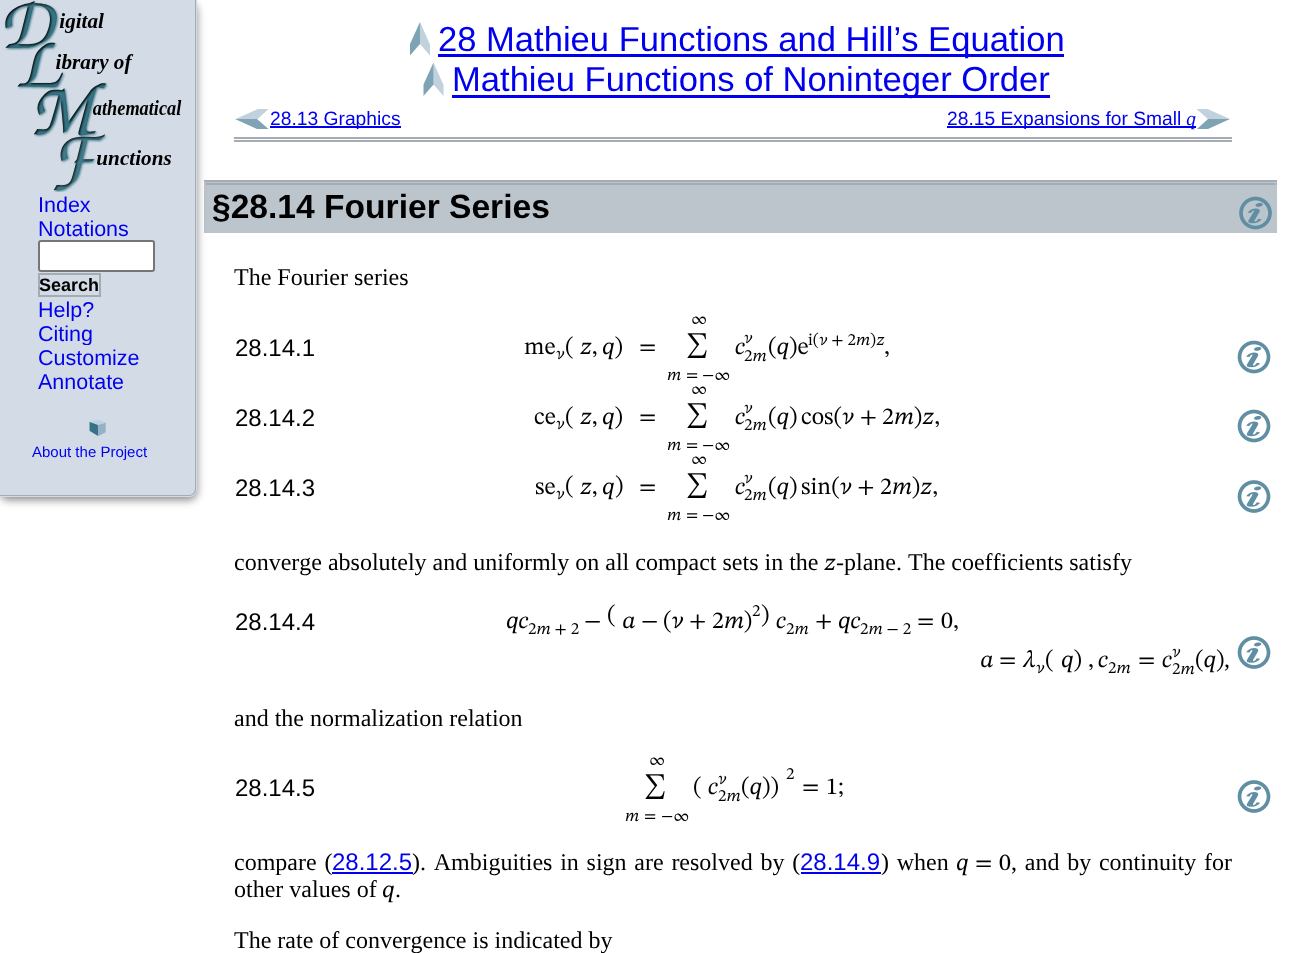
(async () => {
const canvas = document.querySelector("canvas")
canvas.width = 1290
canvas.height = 953
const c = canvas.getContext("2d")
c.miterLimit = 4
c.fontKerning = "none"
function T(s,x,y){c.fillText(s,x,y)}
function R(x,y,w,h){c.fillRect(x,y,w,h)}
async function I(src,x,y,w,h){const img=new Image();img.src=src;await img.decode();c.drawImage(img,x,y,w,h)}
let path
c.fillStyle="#fff"
R(0,0,1290,953)
c.fillStyle="#bcc4cc"
R(204,182,1073,51)
c.fillStyle="#a4abb2"
R(204,180,1073,2)
R(204,183,1073,2)
c.fillStyle="#bcc4cc"
path = new Path2D("M204 232v-52l2 4v47z")
c.fill(path)
c.fillStyle="#888"
c.filter="blur(4px)"
c.beginPath()
c.roundRect(0,3,197,497,8)
c.fill()
c.filter="none"
c.fillStyle="#d3dce6"
c.beginPath()
c.roundRect(0,0,197,497,[0,0,8,0])
c.fill()
c.fillStyle="#a4abb2"
path = new Path2D("M0 0h196v489c0 4-3 7-7 7h-189zm0 0h195v489c0 3-3 6-6 6h-189z")
c.fill(path,"evenodd")
await I("1.png",4,0,178,192)
c.font="21.5px Liberation Sans"
c.fillStyle="#00e"
T("Index",38,212)
T("Notations",38,236)
c.fillStyle="#fff"
c.beginPath()
c.roundRect(39,241,115,30,2)
c.fill()
c.strokeStyle="#767676"
c.lineWidth=2
c.stroke()
c.strokeStyle="#a4abb2"
c.strokeRect(39,274,61,22)
c.font="bold 18px Liberation Sans"
c.fillStyle="#000"
T("Search",39,291)
c.save()
c.beginPath()
c.rect(38,297,135,24)
c.clip()
c.font="21.5px Liberation Sans"
c.fillStyle="#00e"
T("Help?",38,317)
c.restore()
c.save()
c.beginPath()
c.rect(38,321,135,24)
c.clip()
c.font="21.5px Liberation Sans"
c.fillStyle="#00e"
T("Citing",38,341)
c.restore()
c.font="21.5px Liberation Sans"
c.fillStyle="#00e"
T("Customize",38,365)
T("Annotate",38,389)
await I("2.png",89,420,17,16)
c.font="15px Liberation Sans"
T("About the Project",32,457)
c.fillStyle="#a4abb2"
R(234,137,998,2)
R(234,140,998,2)
c.fillStyle="#c1d1dd"
path = new Path2D("M430 44.5v11l-10-11.5v-22z")
c.fill(path)
c.fillStyle="#7ea3b4"
path = new Path2D("M410 44v11.5l10-11.5v-22z")
c.fill(path)
c.fillStyle="#00e"
R(438,54,626,3)
c.font="34.6px Liberation Sans"
T("28 Mathieu Functions and Hill’s Equation",438,51)
c.fillStyle="#c1d1dd"
path = new Path2D("M443.5 85v11l-10-11.5v-22z")
c.fill(path)
c.fillStyle="#608ea2cf"
path = new Path2D("M423.5 84.5v11.5l10-11.5v-22z")
c.fill(path)
c.fillStyle="#00e"
R(452,95,598,3)
T("Mathieu Functions of Noninteger Order",452,91)
c.fillStyle="#c1d1dd"
path = new Path2D("M258 109h10.5l-11 10h-22z")
c.fill(path)
c.fillStyle="#7ea3b4"
path = new Path2D("M257 129h11.5l-11.5-10h-22z")
c.fill(path)
c.fillStyle="#00e"
R(270,126,131,2)
c.font="19.25px Liberation Sans"
T("28.13 Graphics",270,125)
R(947,126,249,2)
T("28.15 Expansions for Small",947,125)
c.font="19.25px STIX Two Math"
T("𝑞",1186,125)
c.fillStyle="#c1d1dd"
path = new Path2D("M1207.5 109h-11l11.5 10h22z")
c.fill(path)
c.fillStyle="#7ea3b4"
path = new Path2D("M1208 129h-11l11-10h22z")
c.fill(path)
c.fillStyle="#bcc4cc"
path = new Path2D("M1276 180v52l-1-1v-47z")
c.fill(path)
c.font="bold 33.6px Liberation Sans"
c.fillStyle="#000"
T("§28.14 Fourier Series",212,218)
await I("3.png",1239,196,33,34)
c.font="24px Liberation Serif"
T("The Fourier series",234,285)
c.font="24px Liberation Sans"
T("28.14.1",235,356)
c.font="24px STIX Two Math"
T("me",524,354)
c.font="17px STIX Two Math"
T("𝜈",556,359)
c.font="24px STIX Two Math"
T("(",565,354)
T("𝑧,",580,354)
T("𝑞)",602,354)
T("=",639,354)
c.font="17px STIX Two Math"
T("∞",691,324)
c.font="24px STIX Two Math"
T("∑",686,352)
c.font="17px STIX Two Math"
T("𝑚",667,380)
T("=",686,380)
T("−∞",702,380)
T("𝜈",744,343)
c.font="24px STIX Two Math"
T("𝑐",735,354)
c.font="17px STIX Two Math"
T("2𝑚",744,361)
c.font="24px STIX Two Math"
T("(𝑞)e",768,354)
c.font="17px STIX Two Math"
T("i(𝜈 + 2𝑚)𝑧",808,345)
c.font="24px STIX Two Math"
T(",",884,354)
await I("4.png",1237,340,34,34)
c.font="24px Liberation Sans"
T("28.14.2",235,426)
c.font="24px STIX Two Math"
T("ce",534,424)
c.font="17px STIX Two Math"
T("𝜈",556,429)
c.font="24px STIX Two Math"
T("(",565,424)
T("𝑧,",580,424)
T("𝑞)",602,424)
T("=",639,424)
c.font="17px STIX Two Math"
T("∞",691,394)
c.font="24px STIX Two Math"
T("∑",686,422)
c.font="17px STIX Two Math"
T("𝑚",667,450)
T("=",686,450)
T("−∞",702,450)
T("𝜈",744,413)
c.font="24px STIX Two Math"
T("𝑐",735,424)
c.font="17px STIX Two Math"
T("2𝑚",744,430)
c.font="24px STIX Two Math"
T("(𝑞)",768,424)
T("cos(𝜈 +",801,424)
T("2𝑚)𝑧,",882,424)
await I("4.png",1237,409,34,34)
c.font="24px Liberation Sans"
T("28.14.3",235,496)
c.font="24px STIX Two Math"
T("se",535,494)
c.font="17px STIX Two Math"
T("𝜈",556,499)
c.font="24px STIX Two Math"
T("(",565,493)
T("𝑧,",580,494)
T("𝑞",602,494)
T(")",615,493)
T("=",639,494)
c.font="17px STIX Two Math"
T("∞",691,464)
c.font="24px STIX Two Math"
T("∑",686,492)
c.font="17px STIX Two Math"
T("𝑚",667,520)
T("=",686,520)
T("−∞",702,520)
T("𝜈",744,483)
c.font="24px STIX Two Math"
T("𝑐",735,494)
c.font="17px STIX Two Math"
T("2𝑚",744,500)
c.font="24px STIX Two Math"
T("(𝑞)",768,494)
T("sin(𝜈 +",801,494)
T("2𝑚)𝑧,",880,494)
await I("5.png",1237,480,34,33)
c.font="24px Liberation Serif"
T("converge absolutely and uniformly on all compact sets in the",234,570)
c.font="24px STIX Two Math"
T("𝑧",824,570)
c.font="24px Liberation Serif"
T("-plane. The coefficients satisfy",836,570)
c.font="24px Liberation Sans"
T("28.14.4",235,630)
c.font="24px STIX Two Math"
T("𝑞𝑐",506,628)
c.font="17px STIX Two Math"
T("2𝑚 + 2",528,634)
c.font="24px STIX Two Math"
T("−",584,628)
T("(",607,622)
T("𝑎",622,628)
T("−",641,628)
T("(𝜈",663,628)
T("+",689,628)
T("2𝑚)",712,628)
c.font="17px STIX Two Math"
T("2",752,616)
c.font="24px STIX Two Math"
T(")",761,622)
T("𝑐",776,628)
c.font="17px STIX Two Math"
T("2𝑚",786,634)
c.font="24px STIX Two Math"
T("+",815,628)
T("𝑞𝑐",838,628)
c.font="17px STIX Two Math"
T("2𝑚 − 2",860,634)
c.font="24px STIX Two Math"
T("=",917,628)
T("0,",941,628)
T("𝑎",980,667)
T("=",999,667)
T("𝜆",1023,667)
c.font="17px STIX Two Math"
T("𝜈",1036,673)
c.font="24px STIX Two Math"
T("(",1045,667)
T("𝑞)",1061,667)
T(",",1088,667)
T("𝑐",1098,667)
c.font="17px STIX Two Math"
T("2𝑚",1108,673)
c.font="24px STIX Two Math"
T("=",1138,667)
c.font="17px STIX Two Math"
T("𝜈",1172,657)
c.font="24px STIX Two Math"
T("𝑐",1162,667)
c.font="17px STIX Two Math"
T("2𝑚",1172,674)
c.font="24px STIX Two Math"
T("(𝑞)",1195,667)
c.font="24px Liberation Serif"
T(",",1224,667)
await I("5.png",1237,636,34,33)
T("and the normalization relation",234,726)
c.font="24px Liberation Sans"
T("28.14.5",235,796)
c.font="17px STIX Two Math"
T("∞",649,765)
c.font="24px STIX Two Math"
T("∑",644,793)
c.font="17px STIX Two Math"
T("𝑚",625,821)
T("=",644,821)
T("−∞",661,821)
T("2",786,779)
c.font="24px STIX Two Math"
T("(",693,794)
c.font="17px STIX Two Math"
T("𝜈",718,784)
c.font="24px STIX Two Math"
T("𝑐",708,794)
c.font="17px STIX Two Math"
T("2𝑚",718,801)
c.font="24px STIX Two Math"
T("(𝑞))",741,794)
T("=",802,794)
T("1;",826,794)
await I("5.png",1237,780,34,33)
c.wordSpacing="2px"
c.font="24px Liberation Serif"
T("compare (",234,870)
c.wordSpacing="0px"
c.font="24px Liberation Sans"
c.fillStyle="#00e"
T("28.12.5",332,870)
R(332,872,81,2)
c.wordSpacing="1.75px"
c.font="24px Liberation Serif"
c.fillStyle="#000"
T("). Ambiguities in sign are resolved by (",412,870)
c.wordSpacing="0px"
c.font="24px Liberation Sans"
c.fillStyle="#00e"
T("28.14.9",800,870)
R(801,872,80,2)
c.wordSpacing="1.75px"
c.font="24px Liberation Serif"
c.fillStyle="#000"
T(") when",881,870)
c.wordSpacing="0px"
c.font="24px STIX Two Math"
T("𝑞",956,870)
T("=",975,870)
T("0",999,870)
c.wordSpacing="1.75px"
c.font="24px Liberation Serif"
T(", and by continuity for",1011,870)
c.wordSpacing="0px"
T("other values of",234,897)
c.font="24px STIX Two Math"
T("𝑞",382,897)
c.font="24px Liberation Serif"
T(".",395,897)
T("The rate of convergence is indicated by",234,948)
})()
